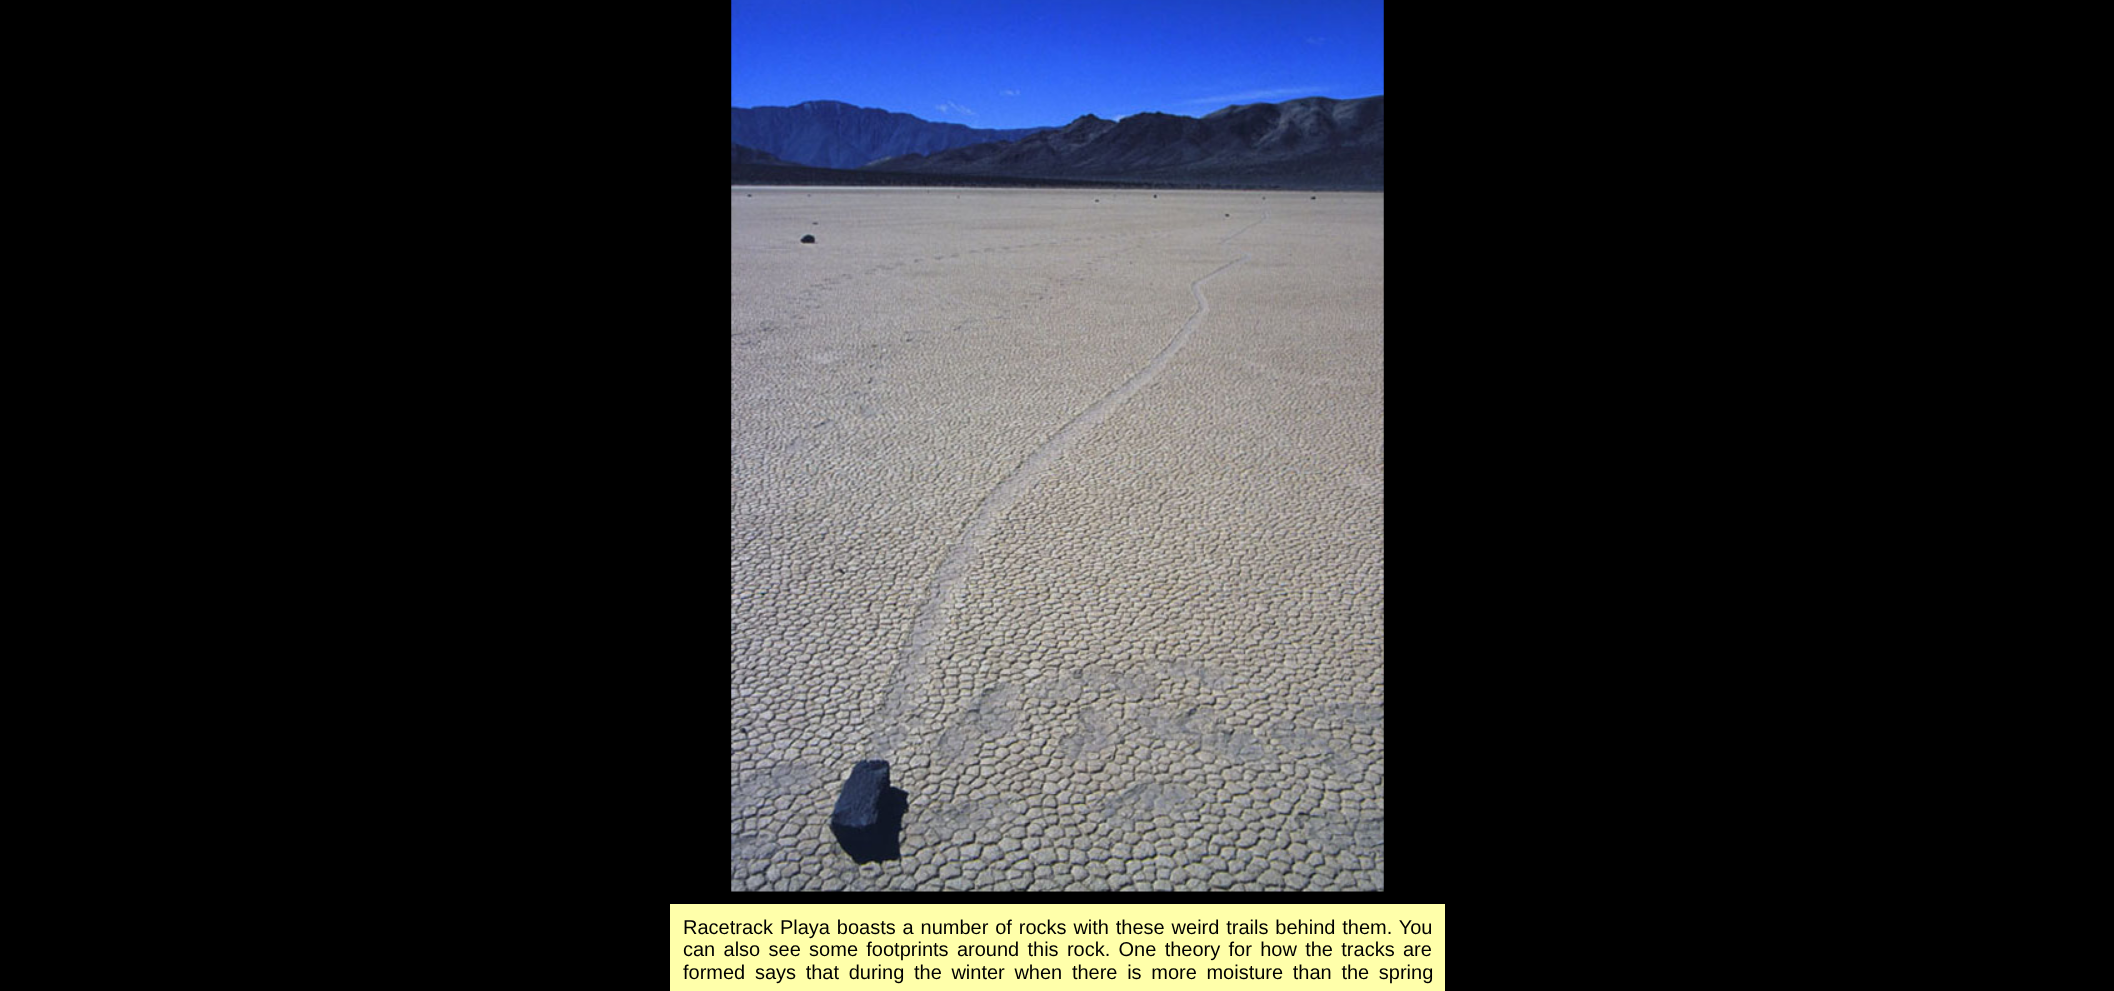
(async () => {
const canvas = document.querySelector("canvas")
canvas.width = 2114
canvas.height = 991
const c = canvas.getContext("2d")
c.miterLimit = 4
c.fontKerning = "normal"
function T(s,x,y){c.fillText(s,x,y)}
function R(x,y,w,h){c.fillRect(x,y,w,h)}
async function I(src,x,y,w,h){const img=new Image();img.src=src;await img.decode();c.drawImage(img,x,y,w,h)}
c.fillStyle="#000"
R(0,0,2114,991)
await I("1.png",731,0,653,892)
c.fillStyle="#ffa"
R(670,904,775,87)
c.wordSpacing="1.3px"
c.font="20px Liberation Sans"
c.fillStyle="#000"
T("Racetrack Playa boasts a number of rocks with these weird trails behind them. You",683,934)
c.wordSpacing="2.75px"
T("can also see some footprints around this rock. One theory for how the tracks are",683,956)
c.wordSpacing="4.1px"
T("formed says that during the winter when there is more moisture than the spring",683,979)
})()
